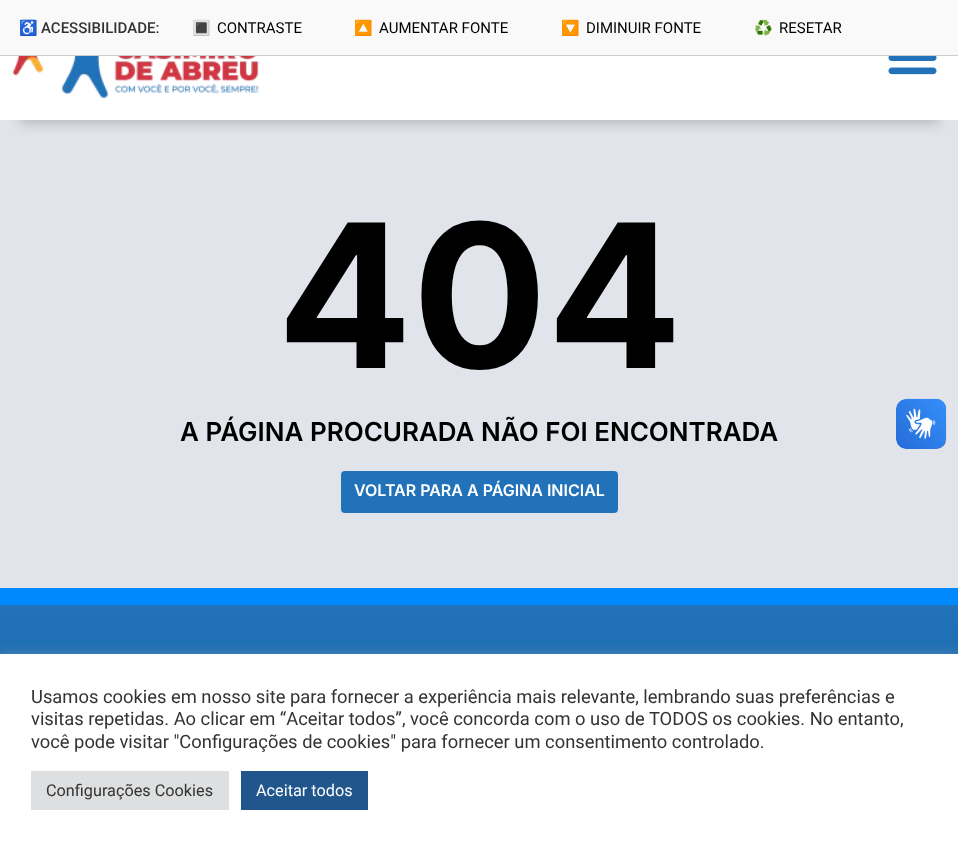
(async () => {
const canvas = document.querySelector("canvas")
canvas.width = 958
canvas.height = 847
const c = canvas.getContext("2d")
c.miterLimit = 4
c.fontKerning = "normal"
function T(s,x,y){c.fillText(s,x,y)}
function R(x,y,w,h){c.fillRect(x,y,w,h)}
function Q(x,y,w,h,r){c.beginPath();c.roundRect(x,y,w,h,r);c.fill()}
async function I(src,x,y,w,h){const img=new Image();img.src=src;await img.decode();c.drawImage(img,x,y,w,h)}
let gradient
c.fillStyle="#e1e5eb"
R(0,0,958,847)
c.fillStyle="#0000002e"
c.filter="blur(6px)"
c.beginPath()
c.rect(20,36,919,88)
c.fill()
c.filter="none"
c.fillStyle="#fff"
R(0,56,958,64)
await I("1.png",12,56,247,42)
await I("2.png",888,56,49,19)
c.fillStyle="#f9f9f9"
R(0,0,958,55)
c.fillStyle="#ccc"
R(0,55,958,1)
c.font="15px Noto Color Emoji"
c.fillStyle="#333"
T("♿",19,33)
c.font="500 15px Roboto"
T("ACESSIBILIDADE:",41,33)
c.font="15px Noto Color Emoji"
c.fillStyle="#000"
T("🔳",192,33)
c.font="15px Roboto"
T("CONTRASTE",217,33)
c.font="15px Noto Color Emoji"
T("🔼",354,33)
c.font="15px Roboto"
T("AUMENTAR FONTE",379,33)
c.font="15px Noto Color Emoji"
T("🔽",561,33)
c.font="15px Roboto"
T("DIMINUIR FONTE",586,33)
c.font="15px Noto Color Emoji"
T("♻️",754,33)
c.font="15px Roboto"
T("RESETAR",779,33)
c.font="bold 200px Inter"
T("404",277,368)
c.font="600 26px Inter"
T("A PÁGINA PROCURADA NÃO FOI ENCONTRADA",180,441)
c.fillStyle="#2172b9"
Q(341,471,277,42,4)
c.font="600 16px Inter"
c.fillStyle="#fff"
T("VOLTAR PARA A PÁGINA INICIAL",354,496)
await I("3.png",896,398,51,51)
await I("4.png",896,399,50,50)
c.strokeStyle="#08f"
c.lineWidth=3
c.strokeRect(1.5,589.5,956,14)
c.fillStyle="#08f"
R(3,591,953,11)
gradient = c.createLinearGradient(479,605,479,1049)
gradient.addColorStop(0,"#2172b9")
gradient.addColorStop(1,"#13548d")
c.fillStyle = gradient
R(0,605,958,49)
c.fillStyle="#acabab4d"
c.filter="blur(6px)"
c.beginPath()
c.rect(0,653,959,193)
c.fill()
c.filter="none"
c.fillStyle="#fff"
R(0,654,958,193)
c.font="18.35px Roboto"
c.fillStyle="#333"
T("Usamos cookies em nosso site para fornecer a experiência mais relevante, lembrando suas preferências e",31,703)
T("visitas repetidas. Ao clicar em “Aceitar todos”, você concorda com o uso de TODOS os cookies. No entanto,",31,725)
T("você pode visitar \"Configurações de cookies\" para fornecer um consentimento controlado.",31,748)
c.fillStyle="#dedfe0"
R(31,771,198,39)
c.font="16.25px Roboto"
c.fillStyle="#333"
T("Configurações Cookies",46,796)
c.fillStyle="#20568c"
R(241,771,127,39)
c.fillStyle="#fff"
T("Aceitar todos",256,796)
})()
